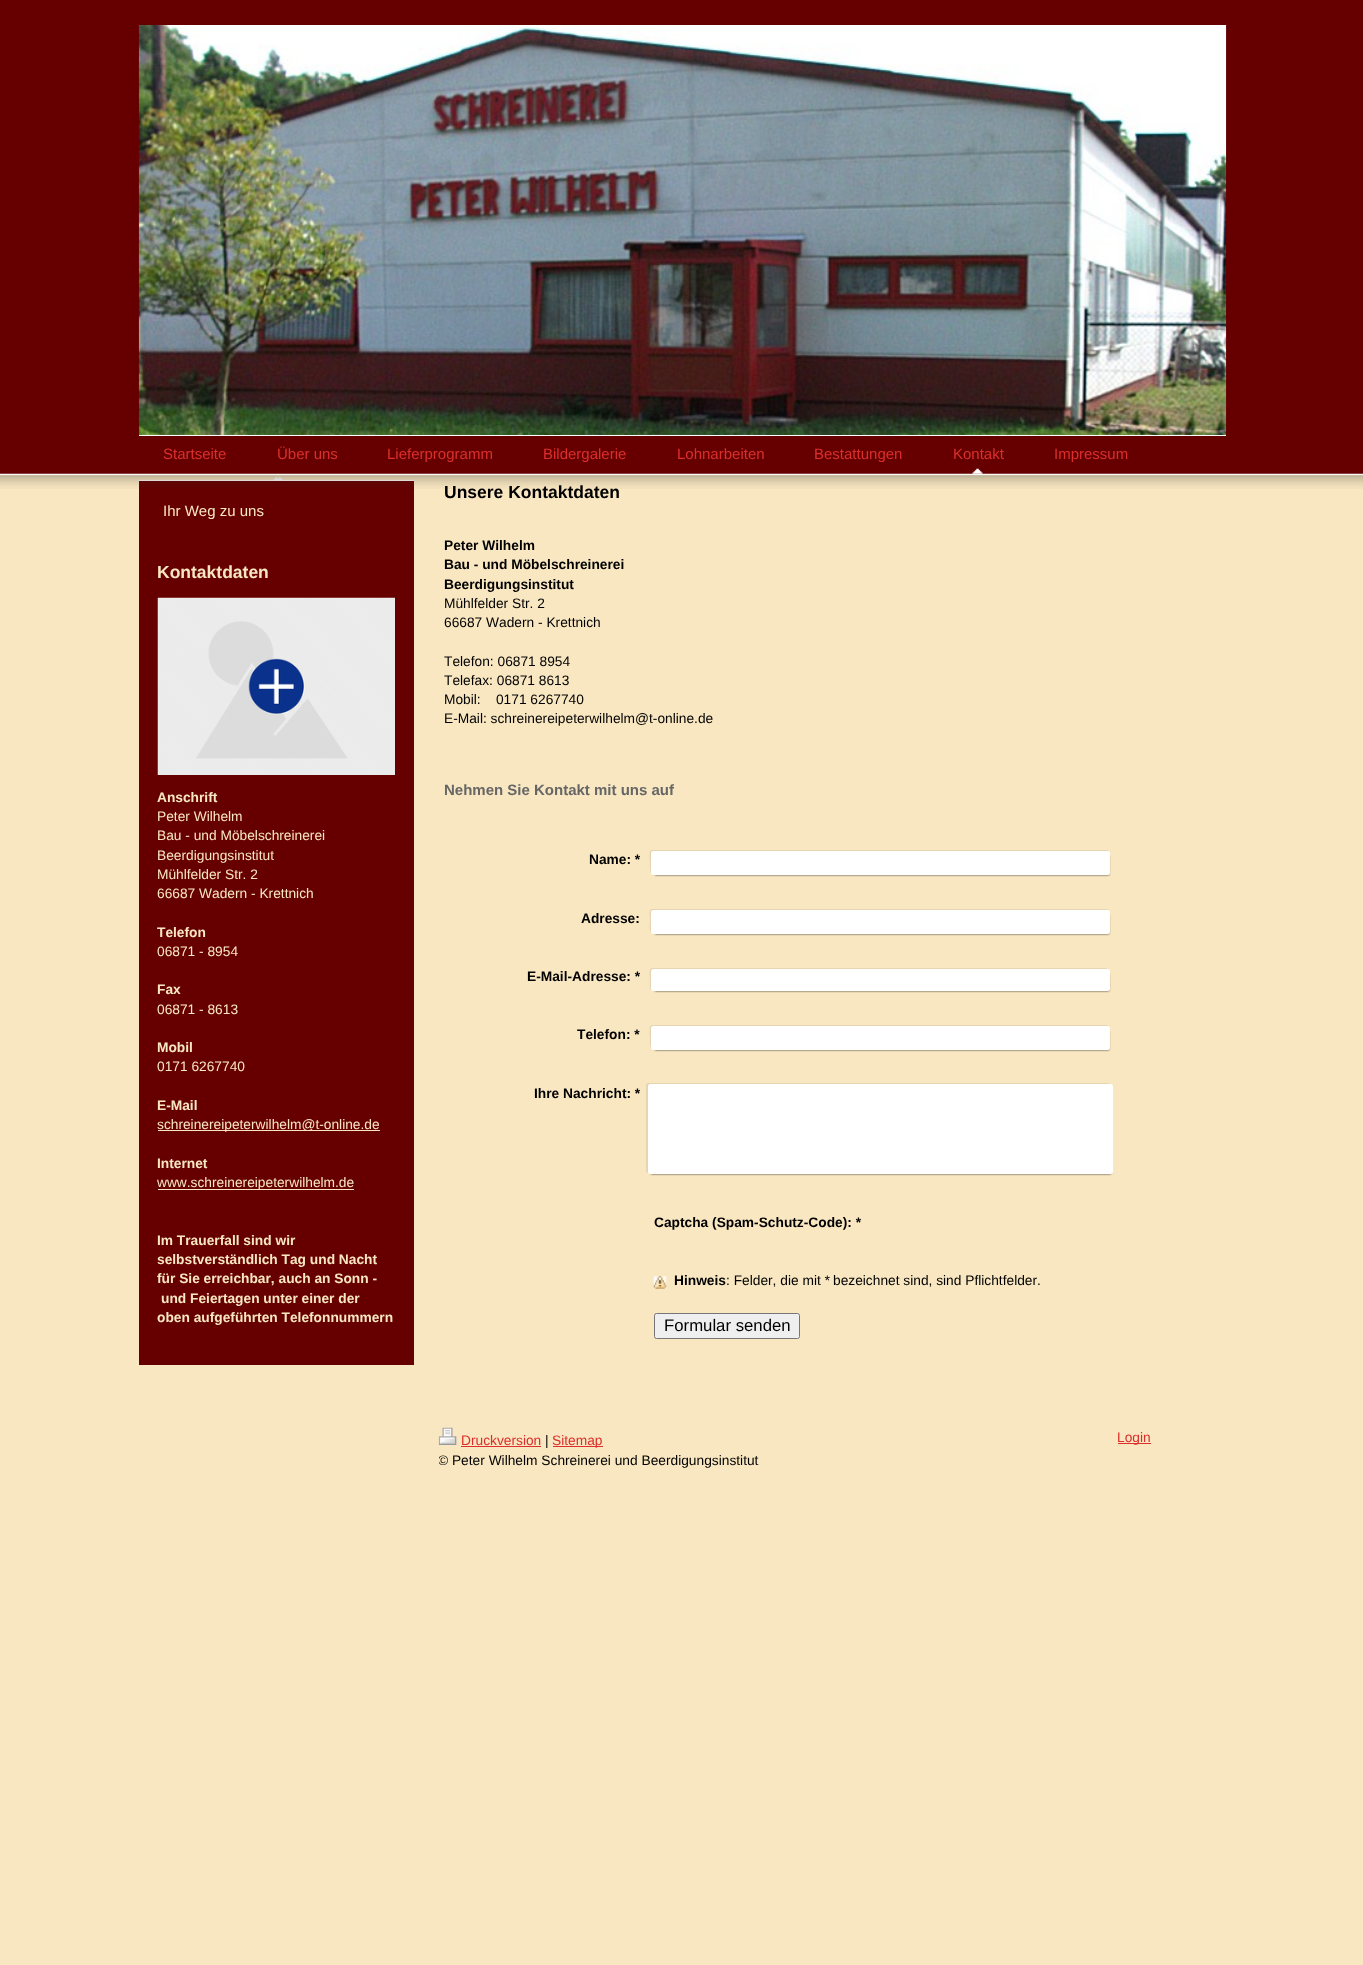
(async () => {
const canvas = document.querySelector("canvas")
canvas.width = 1363
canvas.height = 1965
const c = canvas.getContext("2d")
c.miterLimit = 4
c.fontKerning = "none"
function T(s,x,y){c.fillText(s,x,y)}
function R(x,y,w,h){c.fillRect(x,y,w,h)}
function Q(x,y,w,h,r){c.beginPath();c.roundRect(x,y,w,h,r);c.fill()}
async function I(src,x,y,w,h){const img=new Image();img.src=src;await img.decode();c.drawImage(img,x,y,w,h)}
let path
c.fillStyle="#f9e7c1"
R(0,0,1363,1965)
c.fillStyle="#600"
R(0,0,1363,474)
c.fillStyle="#fff"
R(139,435,1087,1)
await I("1.png",138,25,1089,410)
c.font="15px Liberation Sans"
c.fillStyle="#db2f2c"
T("Startseite",163,459)
T("Über uns",277,459)
T("Lieferprogramm",387,459)
T("Bildergalerie",543,459)
T("Lohnarbeiten",677,459)
T("Bestattungen",814,459)
await I("2.png",972,468,11,6)
T("Kontakt",953,459)
T("Impressum",1054,459)
await I("4.png",138,475,276,7)
c.fillStyle="#600"
R(139,481,275,884)
c.font="bold 17.5px Liberation Sans"
c.fillStyle="#000"
T("Unsere Kontaktdaten",444,498)
await I("3.png",0,473,1363,16)
c.font="15px Liberation Sans"
c.fillStyle="#f9e7c1"
T("Ihr Weg zu uns",163,516)
c.font="bold 17.5px Liberation Sans"
T("Kontaktdaten",157,578)
await I("5.png",157,597,238,178)
c.font="bold 13.75px Liberation Sans"
T("Anschrift",157,802)
c.font="13.75px Liberation Sans"
T("Peter Wilhelm",157,821)
T("Bau - und Möbelschreinerei",157,840)
T("Beerdigungsinstitut",157,860)
T("Mühlfelder Str. 2",157,879)
T("66687 Wadern - Krettnich",157,898)
c.font="bold 13.75px Liberation Sans"
T("Telefon",157,937)
c.font="13.75px Liberation Sans"
T("06871 - 8954",157,956)
c.font="bold 13.75px Liberation Sans"
T("Fax",157,994)
c.font="13.75px Liberation Sans"
T("06871 - 8613",157,1014)
c.font="bold 13.75px Liberation Sans"
T("Mobil",157,1052)
c.font="13.75px Liberation Sans"
T("0171 6267740",157,1071)
c.font="bold 13.75px Liberation Sans"
T("E-Mail",157,1110)
R(158,1130,222,1)
c.font="13.75px Liberation Sans"
T("schreinereipeterwilhelm@t-online.de",157,1129)
c.font="bold 13.75px Liberation Sans"
T("Internet",157,1168)
R(158,1189,196,1)
c.font="13.75px Liberation Sans"
T("www.schreinereipeterwilhelm.de",157,1187)
c.font="bold 13.75px Liberation Sans"
T("Im Trauerfall sind wir",157,1245)
T("selbstverständlich Tag und Nacht",157,1264)
T("für Sie erreichbar, auch an Sonn -",157,1283)
T("und Feiertagen unter einer der",161,1303)
T("oben aufgeführten Telefonnummern",157,1322)
c.fillStyle="#000"
T("Peter Wilhelm",444,550)
T("Bau - und Möbelschreinerei",444,569)
T("Beerdigungsinstitut",444,589)
c.font="13.75px Liberation Sans"
T("Mühlfelder Str. 2",444,608)
T("66687 Wadern - Krettnich",444,627)
T("Telefon: 06871 8954",444,666)
T("Telefax: 06871 8613",444,685)
T("Mobil:    0171 6267740",444,704)
T("E-Mail: schreinereipeterwilhelm@t-online.de",444,723)
c.font="bold 15px Liberation Sans"
c.fillStyle="#666"
T("Nehmen Sie Kontakt mit uns auf",444,795)
c.fillStyle="#e5d5b2"
path = new Path2D("M652 850c-4 0-2 10-2 12c0 2-1 11 2 12l-1-2v-18c0-2 1-3 3-3h454l1 1c0-1-1-2-3-2z")
c.fill(path)
c.fillStyle="#000000cc"
c.filter="blur(1px)"
c.beginPath()
c.rect(655,856,454,19)
c.fill()
c.filter="none"
c.fillStyle="#fff"
Q(651,851,459,24,2.5)
c.font="bold 13.75px Liberation Sans"
c.fillStyle="#000"
T("Name: *",589,864)
c.fillStyle="#e5d5b2"
path = new Path2D("M652 909c-4 0-2 10-2 12c0 2-2 11 2 12c-2-2-1-9-1-11c0-2-1-12 3-12h455c-1 0-2-1-3-1z")
c.fill(path)
c.fillStyle="#000000cc"
c.filter="blur(1px)"
c.beginPath()
c.rect(655,915,454,19)
c.fill()
c.filter="none"
c.fillStyle="#fff"
Q(651,910,459,24,2.5)
c.fillStyle="#000"
T("Adresse:",581,923)
c.fillStyle="#e5d5b2"
path = new Path2D("M652 968c-4 0-2 9-2 11c0 2-1 9 1 11v-19l2-2h455l-2-1z")
c.fill(path)
c.fillStyle="#000000cc"
c.filter="blur(1px)"
c.beginPath()
c.rect(655,974,454,17)
c.fill()
c.filter="none"
c.fillStyle="#fff"
Q(651,969,459,22,2.5)
c.fillStyle="#000"
T("E-Mail-Adresse: *",527,981)
c.fillStyle="#e5d5b2"
path = new Path2D("M652 1025c-4 0-2 10-2 12c0 2-1 11 2 12l-1-1v-19c0-2 1-3 3-3h454l1 1c0-1-1-2-3-2z")
c.fill(path)
c.fillStyle="#000000cc"
c.filter="blur(1px)"
c.beginPath()
c.rect(655,1031,454,19)
c.fill()
c.filter="none"
c.fillStyle="#fff"
Q(651,1026,459,24,2.5)
c.fillStyle="#000"
T("Telefon: *",577,1039)
c.fillStyle="#e5d5b2"
path = new Path2D("M648 1083c-1 0-2 1-2 3v84c0 2 1 3 2 3v-2v-85c0-1 1-2 2-2h460l-2-1z")
c.fill(path)
c.fillStyle="#000000cc"
c.filter="blur(1px)"
c.beginPath()
c.rect(651,1089,460,85)
c.fill()
c.filter="none"
c.fillStyle="#fff"
Q(648,1084,465,90,2.5)
c.fillStyle="#000"
T("Ihre Nachricht: *",534,1098)
T("Captcha (Spam-Schutz-Code): *",654,1227)
await I("6.png",653,1276,14,13)
T("Hinweis",674,1285)
c.font="13.75px Liberation Sans"
T(": Felder, die mit",726,1285)
c.font="italic 13.75px Liberation Sans"
T("*",824,1285)
c.font="13.75px Liberation Sans"
T("bezeichnet sind, sind Pflichtfelder.",833,1285)
c.fillStyle="#efefef"
c.beginPath()
c.roundRect(654.5,1313.5,145,25,2)
c.fill()
c.strokeStyle="#767676"
c.stroke()
c.font="16.75px Liberation Sans"
c.fillStyle="#000"
T("Formular senden",664,1331)
await I("7.png",438,1427,19,18)
c.font="13.75px Liberation Sans"
c.fillStyle="#db2f2c"
T("Druckversion",461,1445)
R(461,1446,80,1)
c.fillStyle="#000"
T("|",545,1445)
c.fillStyle="#db2f2c"
R(553,1446,50,1)
T("Sitemap",552,1445)
c.save()
c.beginPath()
c.rect(439,1428,712,42)
c.clip()
c.fillStyle="#000"
T("© Peter Wilhelm Schreinerei und Beerdigungsinstitut",438,1465)
c.restore()
R(1118,1443,33,1)
T("Login",1117,1442)
})()
